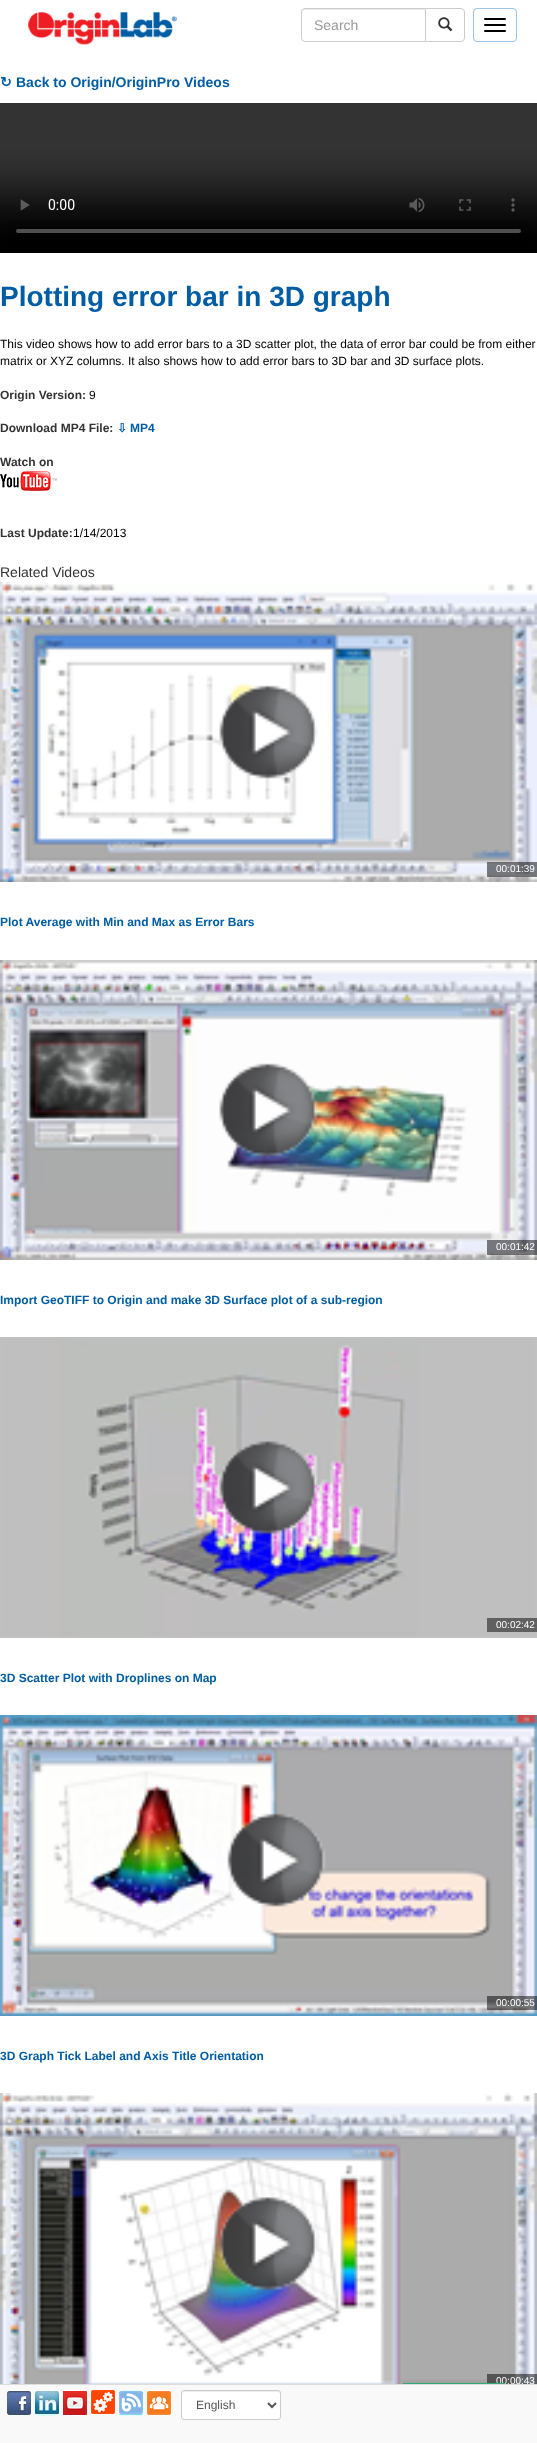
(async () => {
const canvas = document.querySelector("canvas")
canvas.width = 537
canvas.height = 2443
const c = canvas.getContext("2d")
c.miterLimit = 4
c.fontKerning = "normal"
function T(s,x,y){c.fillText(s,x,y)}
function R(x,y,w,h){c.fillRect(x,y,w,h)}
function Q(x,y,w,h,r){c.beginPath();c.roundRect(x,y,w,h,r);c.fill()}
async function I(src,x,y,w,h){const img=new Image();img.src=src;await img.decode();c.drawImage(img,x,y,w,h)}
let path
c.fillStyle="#fff"
R(0,0,537,2443)
await I("1.png",28,12,149,33)
c.beginPath()
c.roundRect(425.5,8.5,39,33,[0,3.5,3.5,0])
c.strokeStyle="#ccc"
c.stroke()
c.beginPath()
c.roundRect(301,8,125,34,[4,0,0,4])
c.fill()
c.fillStyle="#ececec"
path = new Path2D("M305 10h120v-1h-120c-2 0-3 1-3 3v1c0-2 1-3 3-3z")
c.fill(path)
c.beginPath()
c.roundRect(301.5,8.5,124,33,[3.5,0,0,3.5])
c.stroke()
c.font="14px Liberation Sans"
c.fillStyle="#999"
T("Search",314,30)
await I("2.png",438,17,15,15)
c.beginPath()
c.roundRect(473.5,8.5,43,33,3.5)
c.strokeStyle="#9dc3e6"
c.stroke()
c.fillStyle="#000"
Q(484,18,22,2,1)
Q(484,24,22,2,1)
Q(484,30,22,2,1)
c.font="bold 14px DejaVu Sans"
c.fillStyle="#005da4"
T("↻",0,87)
c.font="bold 14px Liberation Sans"
T("Back to Origin/OriginPro Videos",16,87)
await I("3.png",0,103,537,150)
c.font="bold 28px Liberation Sans"
T("Plotting error bar in 3D graph",0,306)
c.font="12px Liberation Sans"
c.fillStyle="#000"
T("This video shows how to add error bars to a 3D scatter plot, the data of error bar could be from either",0,348)
T("matrix or XYZ columns. It also shows how to add error bars to 3D bar and 3D surface plots.",0,365)
c.font="bold 12px Liberation Sans"
c.fillStyle="#333"
T("Origin Version:",0,399)
c.font="12px Liberation Sans"
c.fillStyle="#000"
T("9",89,399)
c.font="bold 12px Liberation Sans"
c.fillStyle="#333"
T("Download MP4 File:",0,432)
c.font="bold 12px DejaVu Sans"
c.fillStyle="#005da4"
T("⇩",117,432)
c.font="bold 12px Liberation Sans"
T("MP4",130,432)
c.fillStyle="#333"
T("Watch on",0,466)
await I("4.png",0,471,57,20)
T("Last Update:",0,537)
c.font="12px Liberation Sans"
c.fillStyle="#000"
T("1/14/2013",73,537)
c.font="14px Liberation Sans"
c.fillStyle="#333"
T("Related Videos",0,577)
await I("5.png",0,582,537,300)
c.fillStyle="#00000080"
R(487,862,50,15)
c.font="10px Liberation Sans"
c.fillStyle="#fff"
T("00:01:39",496,872)
c.font="bold 12px Liberation Sans"
c.fillStyle="#005da4"
T("Plot Average with Min and Max as Error Bars",0,926)
await I("6.png",0,960,537,300)
c.fillStyle="#00000080"
R(487,1240,50,15)
c.font="10px Liberation Sans"
c.fillStyle="#fff"
T("00:01:42",496,1250)
c.font="bold 12px Liberation Sans"
c.fillStyle="#005da4"
T("Import GeoTIFF to Origin and make 3D Surface plot of a sub-region",0,1304)
await I("7.png",0,1337,537,301)
c.fillStyle="#606060"
R(487,1618,50,14)
c.font="10px Liberation Sans"
c.fillStyle="#fff"
T("00:02:42",496,1628)
c.font="bold 12px Liberation Sans"
c.fillStyle="#005da4"
T("3D Scatter Plot with Droplines on Map",0,1682)
await I("8.png",0,1715,537,301)
c.fillStyle="#00000080"
R(487,1996,50,14)
c.font="10px Liberation Sans"
c.fillStyle="#fff"
T("00:00:55",496,2006)
c.font="bold 12px Liberation Sans"
c.fillStyle="#005da4"
T("3D Graph Tick Label and Axis Title Orientation",0,2060)
await I("9.png",0,2093,537,291)
c.fillStyle="#00000080"
R(487,2374,50,10)
c.font="10px Liberation Sans"
c.fillStyle="#fff"
T("00:00:43",496,2384)
await I("10.png",399,2379,114,5)
c.fillStyle="#f9f9f9"
R(0,2385,537,58)
c.fillStyle="#ddd"
R(0,2384,537,1)
await I("11.png",7,2390,25,26)
await I("12.png",35,2390,25,26)
await I("13.png",63,2390,25,26)
await I("14.png",91,2390,25,26)
await I("15.png",119,2390,25,26)
await I("16.png",147,2390,25,26)
c.fillStyle="#fff"
Q(181,2390,100,30,3)
c.fillStyle="#ececec"
path = new Path2D("M184 2392h94c1 0 2 1 2 2c0-1 0-3-2-3h-78c-2 0-18-4-18 3c0-1 1-2 2-2z")
c.fill(path)
c.beginPath()
c.roundRect(181.5,2390.5,99,29,2.5)
c.strokeStyle="#ccc"
c.stroke()
path = new Path2D("M268 2403l4 4l4-4")
c.strokeStyle="#555"
c.lineWidth=2
c.stroke(path)
c.font="12px Liberation Sans"
c.fillStyle="#555"
T("English",196,2409)
})()
